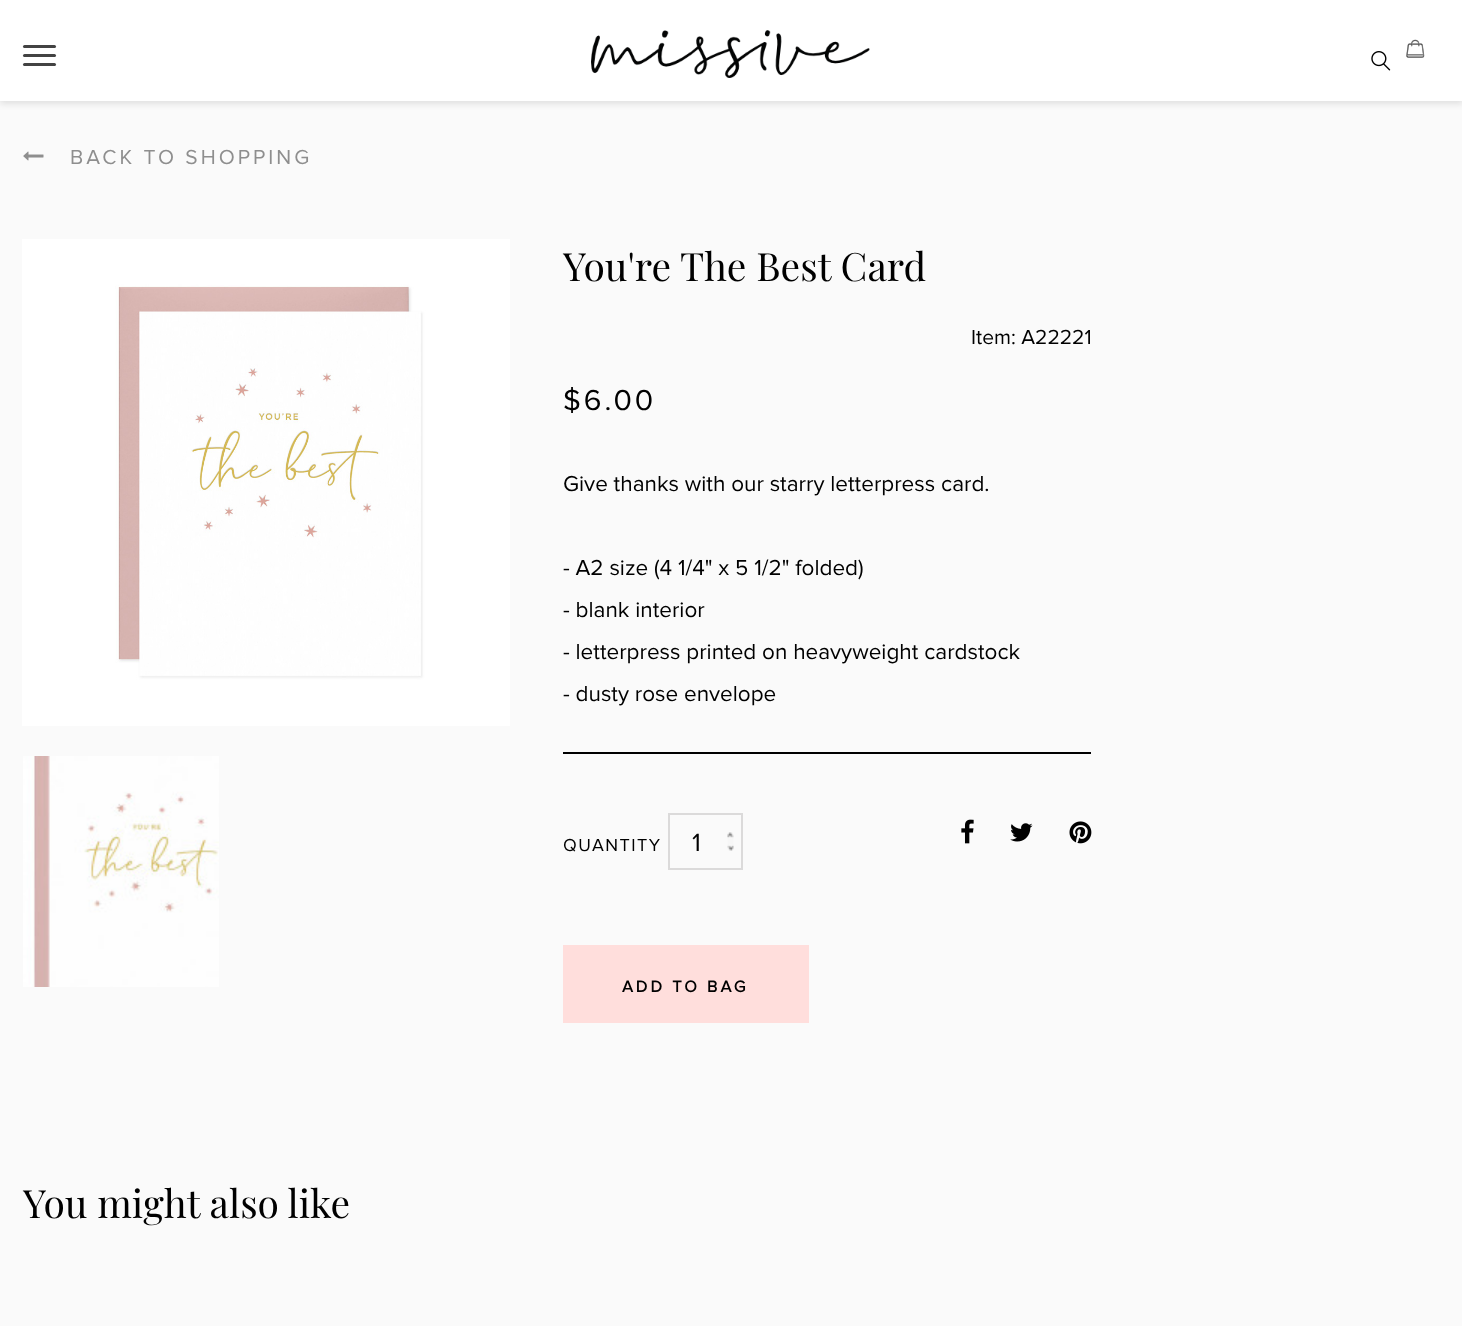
(async () => {
const canvas = document.querySelector("canvas")
canvas.width = 1462
canvas.height = 1326
const c = canvas.getContext("2d")
c.miterLimit = 4
c.fontKerning = "normal"
function T(s,x,y){c.fillText(s,x,y)}
function R(x,y,w,h){c.fillRect(x,y,w,h)}
function Q(x,y,w,h,r){c.beginPath();c.roundRect(x,y,w,h,r);c.fill()}
async function I(src,x,y,w,h){const img=new Image();img.src=src;await img.decode();c.drawImage(img,x,y,w,h)}
c.fillStyle="#fafafa"
R(0,0,1462,1326)
c.fillStyle="#0000001a"
c.filter="blur(3px)"
c.beginPath()
c.rect(0,3,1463,101)
c.fill()
c.filter="none"
c.fillStyle="#fff"
R(0,0,1462,101)
c.fillStyle="#434343"
Q(23,45,33,3,1.5)
Q(23,54,33,3,1.5)
Q(23,63,33,3,1.5)
await I("1.png",591,30,279,48)
await I("2.png",1406,39,19,19)
await I("3.png",1371,51,20,20)
await I("4.png",23,151,21,10)
c.letterSpacing="3px"
c.font="21px Proxima Nova"
c.fillStyle="#8e8e8e"
T("BACK TO SHOPPING",70,164)
await I("5.png",22,239,488,487)
await I("6.png",23,756,196,231)
c.letterSpacing="0px"
c.font="39px Playfair Display"
c.fillStyle="#000"
T("You're The Best Card",563,281)
c.font="21px Proxima Nova"
T("Item: A22221",971,344)
c.letterSpacing="3px"
c.font="30px Proxima Nova"
T("$6.00",563,410)
R(563,752,528,2)
c.letterSpacing="0px"
c.font="22.5px Proxima Nova"
T("Give thanks with our starry letterpress card.",563,491)
T("- A2 size (4 1/4\" x 5 1/2\" folded)",563,575)
T("- blank interior",563,617)
T("- letterpress printed on heavyweight cardstock",563,659)
T("- dusty rose envelope",563,701)
c.letterSpacing="1.5px"
c.font="18px Proxima Nova"
T("QUANTITY",563,851)
c.strokeStyle="#dbdada"
c.lineWidth=2
c.strokeRect(669,814,73,55)
c.letterSpacing="0px"
c.font="26px Proxima Nova"
T("1",692,851)
await I("7.png",727,832,7,19)
await I("8.png",961,819,13,25)
await I("9.png",1010,823,23,19)
await I("10.png",1069,821,23,23)
c.fillStyle="#ffdedc"
R(563,945,246,78)
c.letterSpacing="3px"
c.font="bold 16.5px Proxima Nova"
c.fillStyle="#000"
T("ADD TO BAG",622,992)
c.letterSpacing="0px"
c.font="39px Playfair Display"
T("You might also like",23,1218)
})()
